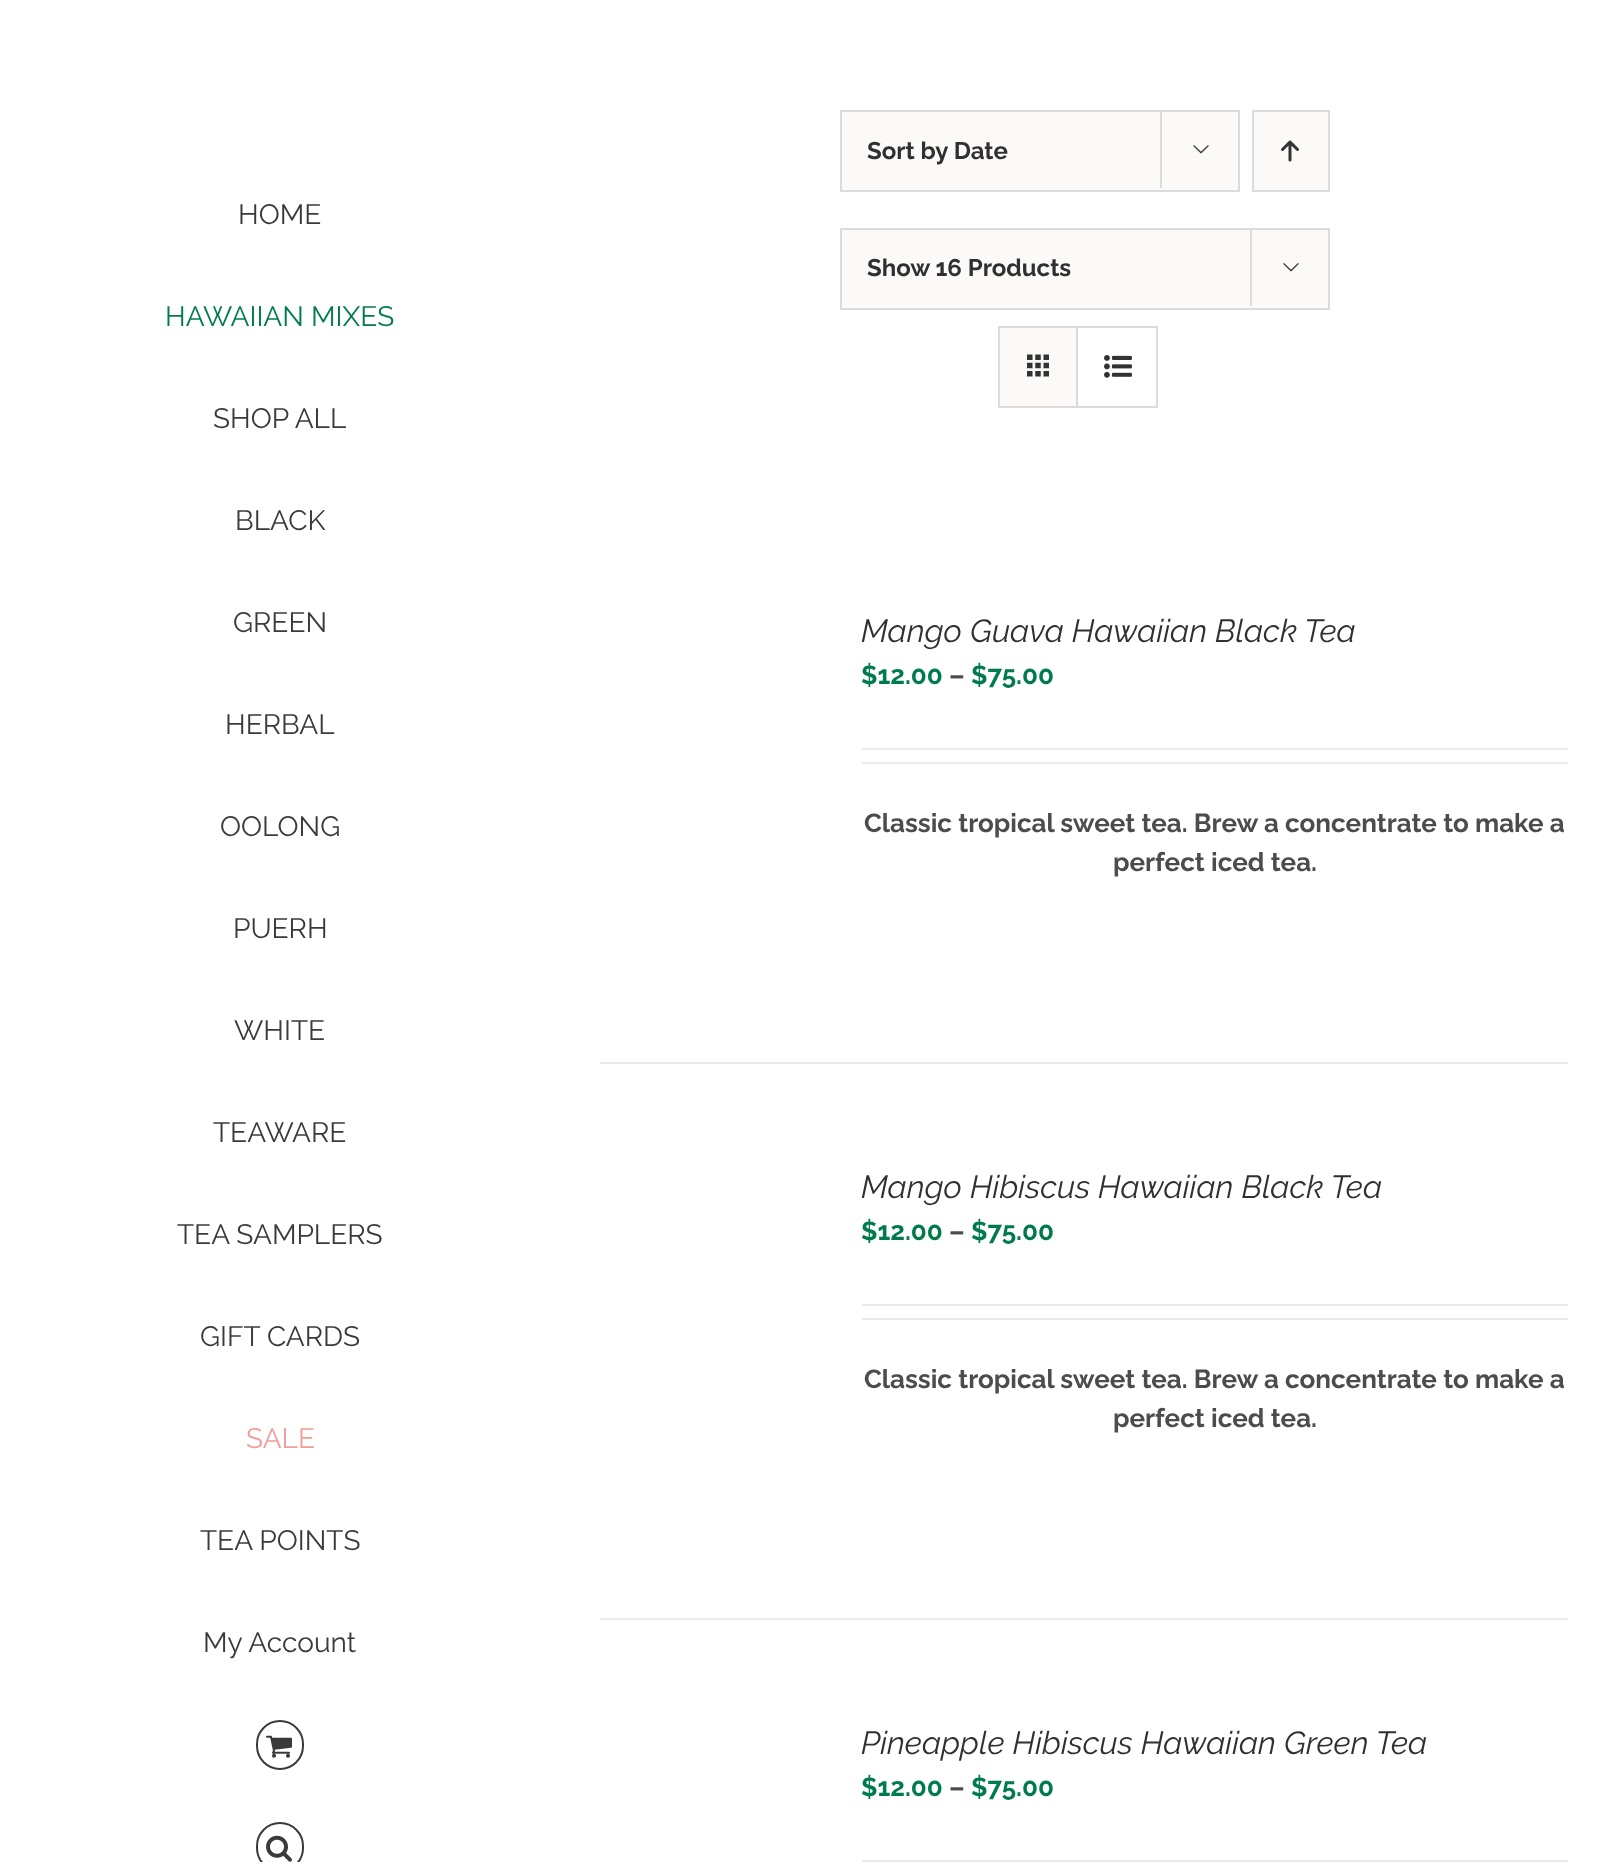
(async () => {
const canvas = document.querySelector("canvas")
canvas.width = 1608
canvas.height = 1862
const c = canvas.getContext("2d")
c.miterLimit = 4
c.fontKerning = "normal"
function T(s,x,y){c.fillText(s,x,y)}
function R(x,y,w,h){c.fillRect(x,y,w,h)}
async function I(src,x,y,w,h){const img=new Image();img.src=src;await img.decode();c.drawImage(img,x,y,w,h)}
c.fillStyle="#fff"
R(0,0,1608,1862)
c.font="28px Raleway"
c.fillStyle="#3a3a3a"
T("HOME",238,224)
c.fillStyle="#007c4c"
T("HAWAIIAN MIXES",165,326)
c.fillStyle="#3a3a3a"
T("SHOP ALL",213,428)
T("BLACK",235,530)
T("GREEN",233,632)
T("HERBAL",225,734)
T("OOLONG",220,836)
T("PUERH",233,938)
T("WHITE",234,1040)
T("TEAWARE",213,1142)
T("TEA SAMPLERS",177,1244)
T("GIFT CARDS",200,1346)
c.fillStyle="#f49c9b"
T("SALE",246,1448)
c.fillStyle="#3a3a3a"
T("TEA POINTS",200,1550)
T("My Account",203,1652)
c.beginPath()
c.roundRect(257,1721,46,48,23)
c.strokeStyle="#3a3a3a"
c.lineWidth=2
c.stroke()
await I("1.png",266,1735,26,23)
c.beginPath()
c.roundRect(257,1823,46,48,23)
c.stroke()
await I("2.png",266,1835,26,27)
c.fillStyle="#fbfaf9"
c.beginPath()
c.rect(841,111,398,80)
c.fill()
c.strokeStyle="#dbdbdb"
c.stroke()
c.font="bold 24px Raleway"
c.fillStyle="#303030"
T("Sort by Date",867,159)
c.fillStyle="#dbdbdb"
R(1160,110,2,78)
await I("3.png",1193,145,16,9)
c.fillStyle="#fbfaf9"
c.beginPath()
c.rect(1253,111,76,80)
c.fill()
c.stroke()
await I("4.png",1281,140,18,22)
c.beginPath()
c.rect(841,229,488,80)
c.fill()
c.stroke()
c.fillStyle="#303030"
T("Show 16 Products",867,276)
c.fillStyle="#dbdbdb"
R(1250,228,2,78)
await I("3.png",1283,263,16,9)
c.strokeRect(999,327,158,80)
c.fillStyle="#fbfaf9"
R(1000,328,76,78)
c.fillStyle="#dbdbdb"
R(1076,328,2,78)
await I("5.png",1027,354,22,23)
await I("6.png",1104,355,28,23)
c.fillStyle="#ebeaea"
R(600,1062,968,2)
c.font="italic 32px Raleway"
c.fillStyle="#303030"
T("Mango Guava Hawaiian Black Tea",861,642)
c.font="bold 26px Raleway"
c.fillStyle="#007c4c"
T("$12.00",861,684)
c.fillStyle="#4c4c4c"
T("–",949,684)
c.fillStyle="#007c4c"
T("$75.00",971,684)
c.fillStyle="#ebeaea"
R(862,748,706,2)
R(862,762,706,2)
c.fillStyle="#4c4c4c"
T("Classic tropical sweet tea. Brew a concentrate to make a",864,832)
T("perfect iced tea.",1113,871)
c.fillStyle="#ebeaea"
R(600,1618,968,2)
c.font="italic 32px Raleway"
c.fillStyle="#303030"
T("Mango Hibiscus Hawaiian Black Tea",861,1198)
c.font="bold 26px Raleway"
c.fillStyle="#007c4c"
T("$12.00",861,1240)
c.fillStyle="#4c4c4c"
T("–",949,1240)
c.fillStyle="#007c4c"
T("$75.00",971,1240)
c.fillStyle="#ebeaea"
R(862,1304,706,2)
R(862,1318,706,2)
c.fillStyle="#4c4c4c"
T("Classic tropical sweet tea. Brew a concentrate to make a",864,1388)
T("perfect iced tea.",1113,1427)
c.font="italic 32px Raleway"
c.fillStyle="#303030"
T("Pineapple Hibiscus Hawaiian Green Tea",861,1754)
c.font="bold 26px Raleway"
c.fillStyle="#007c4c"
T("$12.00",861,1796)
c.fillStyle="#4c4c4c"
T("–",949,1796)
c.fillStyle="#007c4c"
T("$75.00",971,1796)
c.fillStyle="#ebeaea"
R(862,1860,706,2)
})()
